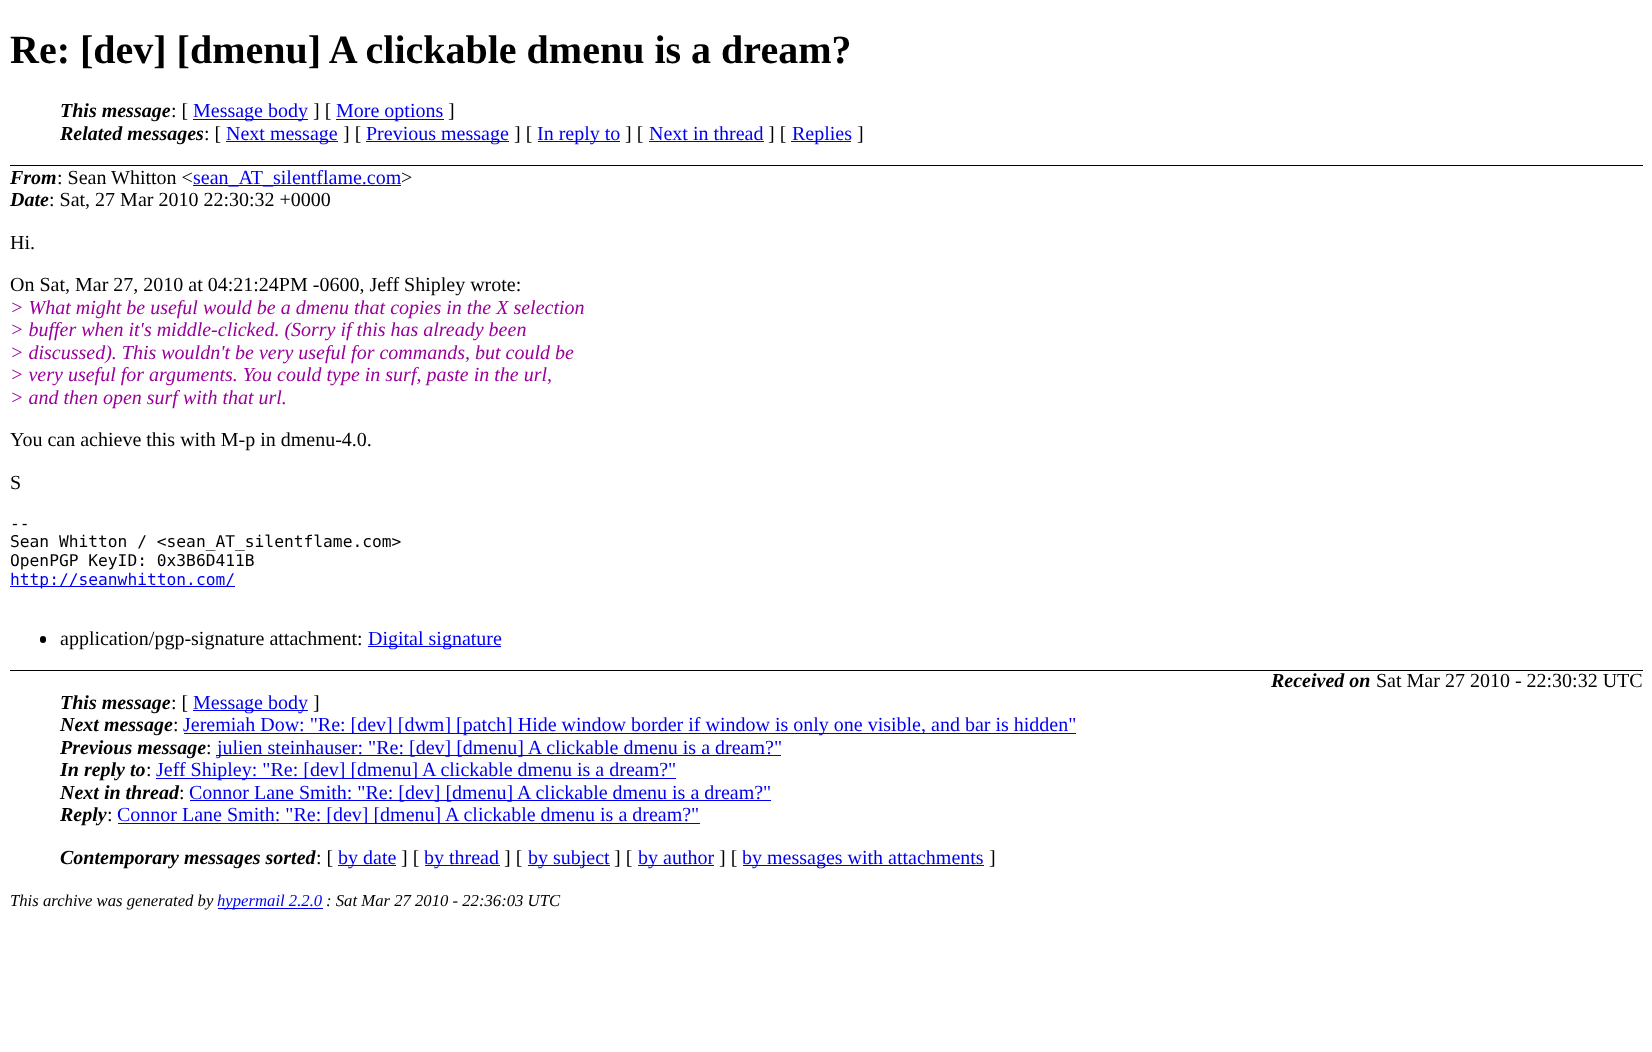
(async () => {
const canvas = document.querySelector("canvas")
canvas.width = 1652
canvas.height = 1052
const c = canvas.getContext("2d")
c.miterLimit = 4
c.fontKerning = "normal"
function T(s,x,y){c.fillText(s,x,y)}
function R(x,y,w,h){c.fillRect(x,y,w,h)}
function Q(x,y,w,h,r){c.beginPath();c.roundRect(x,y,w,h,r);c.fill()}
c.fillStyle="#fff"
R(0,0,1652,1052)
c.fillStyle="#000"
R(10,165,1633,1)
c.font="bold 40px Liberation Serif"
T("Re: [dev] [dmenu] A clickable dmenu is a dream?",10,63)
c.font="italic bold 20px Liberation Serif"
T("This message",60,117)
c.font="20px Liberation Serif"
T(": [",171,117)
c.fillStyle="#00e"
R(193,119,115,1)
T("Message body",193,117)
c.fillStyle="#000"
T("] [",313,117)
c.fillStyle="#00e"
R(336,119,108,1)
T("More options",336,117)
c.fillStyle="#000"
T("]",448,117)
c.font="italic bold 20px Liberation Serif"
T("Related messages",60,140)
c.font="20px Liberation Serif"
T(": [",204,140)
c.fillStyle="#00e"
R(226,141,112,1)
T("Next message",226,140)
c.fillStyle="#000"
T("] [",343,140)
c.fillStyle="#00e"
R(366,141,143,1)
T("Previous message",366,140)
c.fillStyle="#000"
T("] [",514,140)
c.fillStyle="#00e"
R(538,141,82,1)
T("In reply to",537,140)
c.fillStyle="#000"
T("] [",625,140)
c.fillStyle="#00e"
T("Next in thread",649,140)
R(649,141,115,1)
c.fillStyle="#000"
T("] [",768,140)
c.fillStyle="#00e"
R(791,141,60,1)
T("Replies",792,140)
c.fillStyle="#000"
T("]",857,140)
c.font="italic bold 20px Liberation Serif"
T("From",10,184)
c.font="20px Liberation Serif"
T(": Sean Whitton <",57,184)
c.fillStyle="#00e"
R(193,185,208,1)
T("sean_AT_silentflame.com",193,184)
c.fillStyle="#000"
T(">",401,184)
c.font="italic bold 20px Liberation Serif"
T("Date",10,206)
c.font="20px Liberation Serif"
T(": Sat, 27 Mar 2010 22:30:32 +0000",49,206)
T("Hi.",10,249)
T("On Sat, Mar 27, 2010 at 04:21:24PM -0600, Jeff Shipley wrote:",10,291)
c.font="italic 20px Liberation Serif"
c.fillStyle="#909"
T("> What might be useful would be a dmenu that copies in the X selection",10,314)
T("> buffer when it's middle-clicked. (Sorry if this has already been",10,336)
T("> discussed). This wouldn't be very useful for commands, but could be",10,359)
T("> very useful for arguments. You could type in surf, paste in the url,",10,381)
T("> and then open surf with that url.",10,404)
c.font="20px Liberation Serif"
c.fillStyle="#000"
T("You can achieve this with M-p in dmenu-4.0.",10,446)
T("S",10,489)
c.font="16.25px DejaVu Sans Mono"
T("--",10,529)
T("Sean Whitton / <sean_AT_silentflame.com>",10,547)
T("OpenPGP KeyID: 0x3B6D411B",10,566)
c.fillStyle="#00e"
R(10,586,225,1)
T("http://seanwhitton.com/",10,585)
c.fillStyle="#000"
Q(40,636,6,7,3)
c.font="20px Liberation Serif"
T("application/pgp-signature attachment:",60,645)
c.fillStyle="#00e"
R(368,646,133,1)
T("Digital signature",368,645)
c.font="italic bold 20px Liberation Serif"
c.fillStyle="#000"
T("Received on",1271,687)
c.font="20px Liberation Serif"
T("Sat Mar 27 2010 - 22:30:32 UTC",1376,687)
R(10,670,1633,1)
c.font="italic bold 20px Liberation Serif"
T("This message",60,709)
c.font="20px Liberation Serif"
T(": [",171,709)
c.fillStyle="#00e"
R(193,710,115,1)
T("Message body",193,709)
c.fillStyle="#000"
T("]",313,709)
c.font="italic bold 20px Liberation Serif"
T("Next message",60,731)
c.font="20px Liberation Serif"
T(":",173,731)
c.fillStyle="#00e"
R(184,733,892,1)
T("Jeremiah Dow: \"Re: [dev] [dwm] [patch] Hide window border if window is only one visible, and bar is hidden\"",183,731)
c.font="italic bold 20px Liberation Serif"
c.fillStyle="#000"
T("Previous message",60,754)
c.font="20px Liberation Serif"
T(":",206,754)
c.fillStyle="#00e"
R(216,755,565,1)
T("julien steinhauser: \"Re: [dev] [dmenu] A clickable dmenu is a dream?\"",217,754)
c.font="italic bold 20px Liberation Serif"
c.fillStyle="#000"
T("In reply to",60,776)
c.font="20px Liberation Serif"
T(":",146,776)
c.fillStyle="#00e"
R(156,778,520,1)
T("Jeff Shipley: \"Re: [dev] [dmenu] A clickable dmenu is a dream?\"",156,776)
c.font="italic bold 20px Liberation Serif"
c.fillStyle="#000"
T("Next in thread",60,799)
c.font="20px Liberation Serif"
T(":",179,799)
c.fillStyle="#00e"
R(190,800,581,1)
T("Connor Lane Smith: \"Re: [dev] [dmenu] A clickable dmenu is a dream?\"",189,799)
c.font="italic bold 20px Liberation Serif"
c.fillStyle="#000"
T("Reply",60,821)
c.font="20px Liberation Serif"
T(":",107,821)
c.fillStyle="#00e"
R(118,823,582,1)
T("Connor Lane Smith: \"Re: [dev] [dmenu] A clickable dmenu is a dream?\"",117,821)
c.font="italic bold 20px Liberation Serif"
c.fillStyle="#000"
T("Contemporary messages sorted",60,864)
c.font="20px Liberation Serif"
T(": [",316,864)
c.fillStyle="#00e"
R(338,865,58,1)
T("by date",338,864)
c.fillStyle="#000"
T("] [",401,864)
c.fillStyle="#00e"
R(425,865,75,1)
T("by thread",424,864)
c.fillStyle="#000"
T("] [",504,864)
c.fillStyle="#00e"
R(528,865,82,1)
T("by subject",528,864)
c.fillStyle="#000"
T("] [",614,864)
c.fillStyle="#00e"
R(638,865,76,1)
T("by author",638,864)
c.fillStyle="#000"
T("] [",719,864)
c.fillStyle="#00e"
R(743,865,241,1)
T("by messages with attachments",742,864)
c.fillStyle="#000"
T("]",989,864)
c.font="italic 16.7px Liberation Serif"
T("This archive was generated by",10,906)
c.fillStyle="#00e"
R(218,908,105,1)
T("hypermail 2.2.0",217,906)
c.fillStyle="#000"
T(": Sat Mar 27 2010 - 22:36:03 UTC",326,906)
})()
